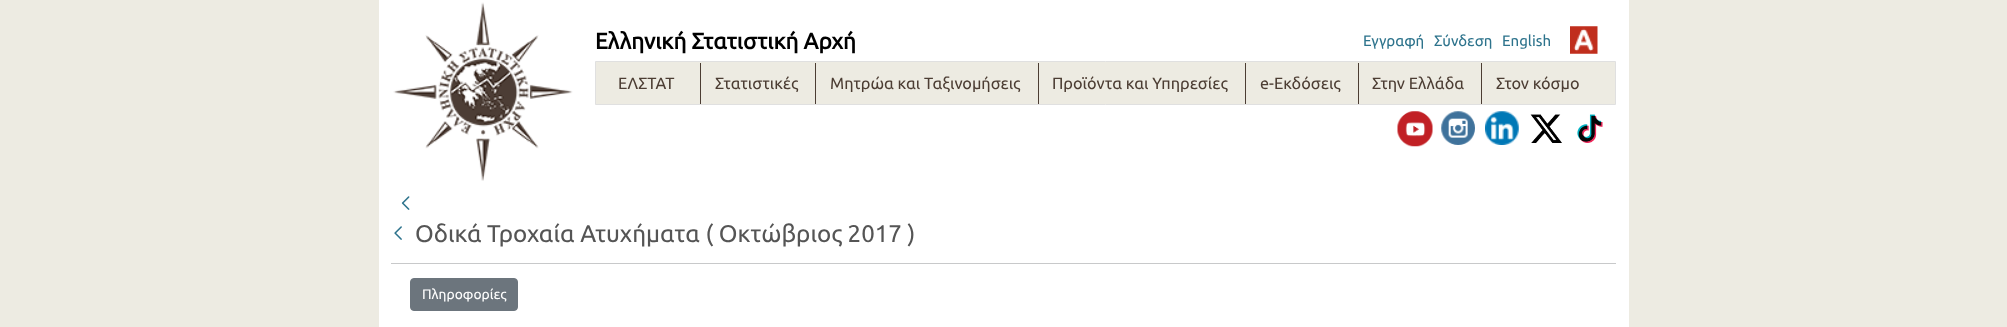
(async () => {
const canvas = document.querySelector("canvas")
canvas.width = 2007
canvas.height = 327
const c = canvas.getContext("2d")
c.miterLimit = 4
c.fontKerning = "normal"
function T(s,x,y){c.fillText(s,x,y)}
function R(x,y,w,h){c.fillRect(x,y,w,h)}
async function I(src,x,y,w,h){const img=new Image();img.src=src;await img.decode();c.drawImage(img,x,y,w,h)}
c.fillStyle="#edebe2"
R(0,0,2007,327)
c.fillStyle="#fff"
R(379,0,1250,327)
await I("1.png",393,2,180,179)
c.font="bold 22.5px Ubuntu"
c.fillStyle="#000"
T("Ελληνική Στατιστική Αρχή",595,49)
c.font="15px Ubuntu"
c.fillStyle="#2d738c"
T("Εγγραφή",1363,46)
T("Σύνδεση",1434,46)
T("English",1502,46)
await I("2.png",1570,26,28,28)
c.fillStyle="#edebe2"
c.beginPath()
c.rect(595.5,61.5,1020,43)
c.fill()
c.strokeStyle="#e0e0e0"
c.stroke()
c.font="16.25px Ubuntu"
c.fillStyle="#4c3d33"
T("ΕΛΣΤΑΤ",618,89)
R(700,63,1,41)
T("Στατιστικές",715,89)
R(815,63,1,41)
T("Μητρώα και Ταξινομήσεις",830,89)
R(1038,63,1,41)
T("Προϊόντα και Υπηρεσίες",1052,89)
R(1245,63,1,41)
T("e-Εκδόσεις",1260,89)
R(1358,63,1,41)
T("Στην Ελλάδα",1372,89)
R(1481,63,1,41)
T("Στον κόσμο",1496,89)
await I("3.png",1397,111,36,36)
await I("4.png",1441,111,34,34)
await I("5.png",1485,111,34,34)
await I("6.png",1530,114,32,29)
await I("7.png",1577,114,26,29)
await I("8.png",401,196,9,14)
c.fillStyle="#c8c9ca"
R(391,263,1225,1)
await I("9.png",394,226,8,14)
c.font="24.1px Ubuntu"
c.fillStyle="#555"
T("Οδικά Τροχαία Ατυχήματα ( Οκτώβριος 2017 )",415,242)
c.fillStyle="#6c757d"
c.beginPath()
c.roundRect(410.5,278.5,107,32,3.5)
c.fill()
c.strokeStyle="#6c757d"
c.stroke()
c.font="13.75px Ubuntu"
c.fillStyle="#fff"
T("Πληροφορίες",422,299)
})()
